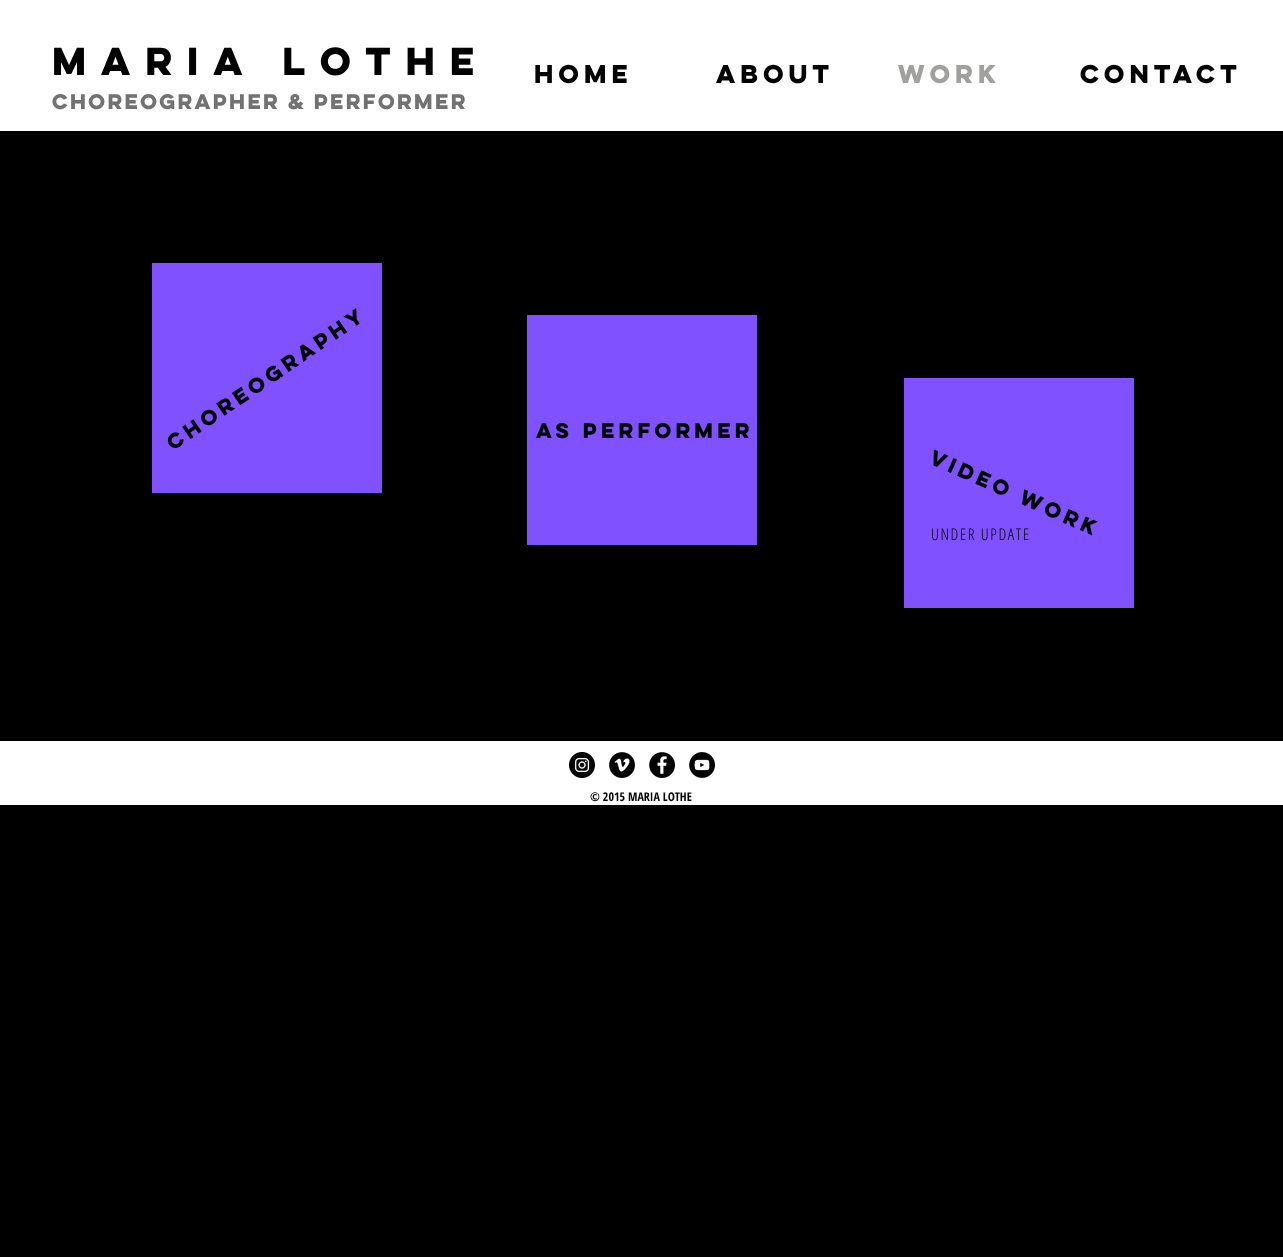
(async () => {
const canvas = document.querySelector("canvas")
canvas.width = 1283
canvas.height = 1257
const c = canvas.getContext("2d")
c.miterLimit = 4
c.fontKerning = "normal"
function T(s,x,y){c.fillText(s,x,y)}
function R(x,y,w,h){c.fillRect(x,y,w,h)}
async function I(src,x,y,w,h){const img=new Image();img.src=src;await img.decode();c.drawImage(img,x,y,w,h)}
c.fillStyle="#000"
R(0,0,1283,1257)
c.fillStyle="#fff"
R(0,0,1283,131)
c.letterSpacing="7px"
c.font="bold 35px 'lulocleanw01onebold'"
c.fillStyle="#000"
T("MARIA LOTHE",52,75)
c.letterSpacing="0px"
c.font="bold 23px 'lulocleanw01onebold'"
T("HOME",534,83)
T("ABOUT",716,83)
c.fillStyle="#a0a09f"
T("WORK",898,83)
c.fillStyle="#000"
T("CONTACT",1080,83)
c.letterSpacing="-1.9px"
c.font="bold 19px 'lulocleanw01onebold'"
c.fillStyle="#727272"
T("CHOREOGRAPHER & PERFORMER",52,109)
c.fillStyle="#8051ff"
R(152,263,230,230)
c.letterSpacing="0px"
c.fillStyle="#000"
c.save()
c.translate(173,451)
c.rotate(-34.3 * Math.PI / 180)
c.fillText("CHOREOGRAPHY",0,0)
c.restore()
c.fillStyle="#8051ff"
R(527,315,230,230)
R(904,378,230,230)
c.fillStyle="#000"
T("AS PERFORMER",536,438)
c.save()
c.translate(928,463)
c.rotate(23.8 * Math.PI / 180)
c.fillText("VIDEO WORK",0,0)
c.restore()
c.letterSpacing="1.6px"
c.font="300 16px Open Sans Condensed"
T("UNDER UPDATE",931,540)
c.fillStyle="#fff"
R(0,741,1283,64)
await I("1.png",569,752,26,26)
await I("2.png",609,752,26,26)
await I("3.png",649,752,26,26)
await I("4.png",689,752,26,26)
c.letterSpacing="0px"
c.font="bold 12px Open Sans Condensed"
c.fillStyle="#000"
T("© 2015 MARIA LOTHE",590,801)
})()
